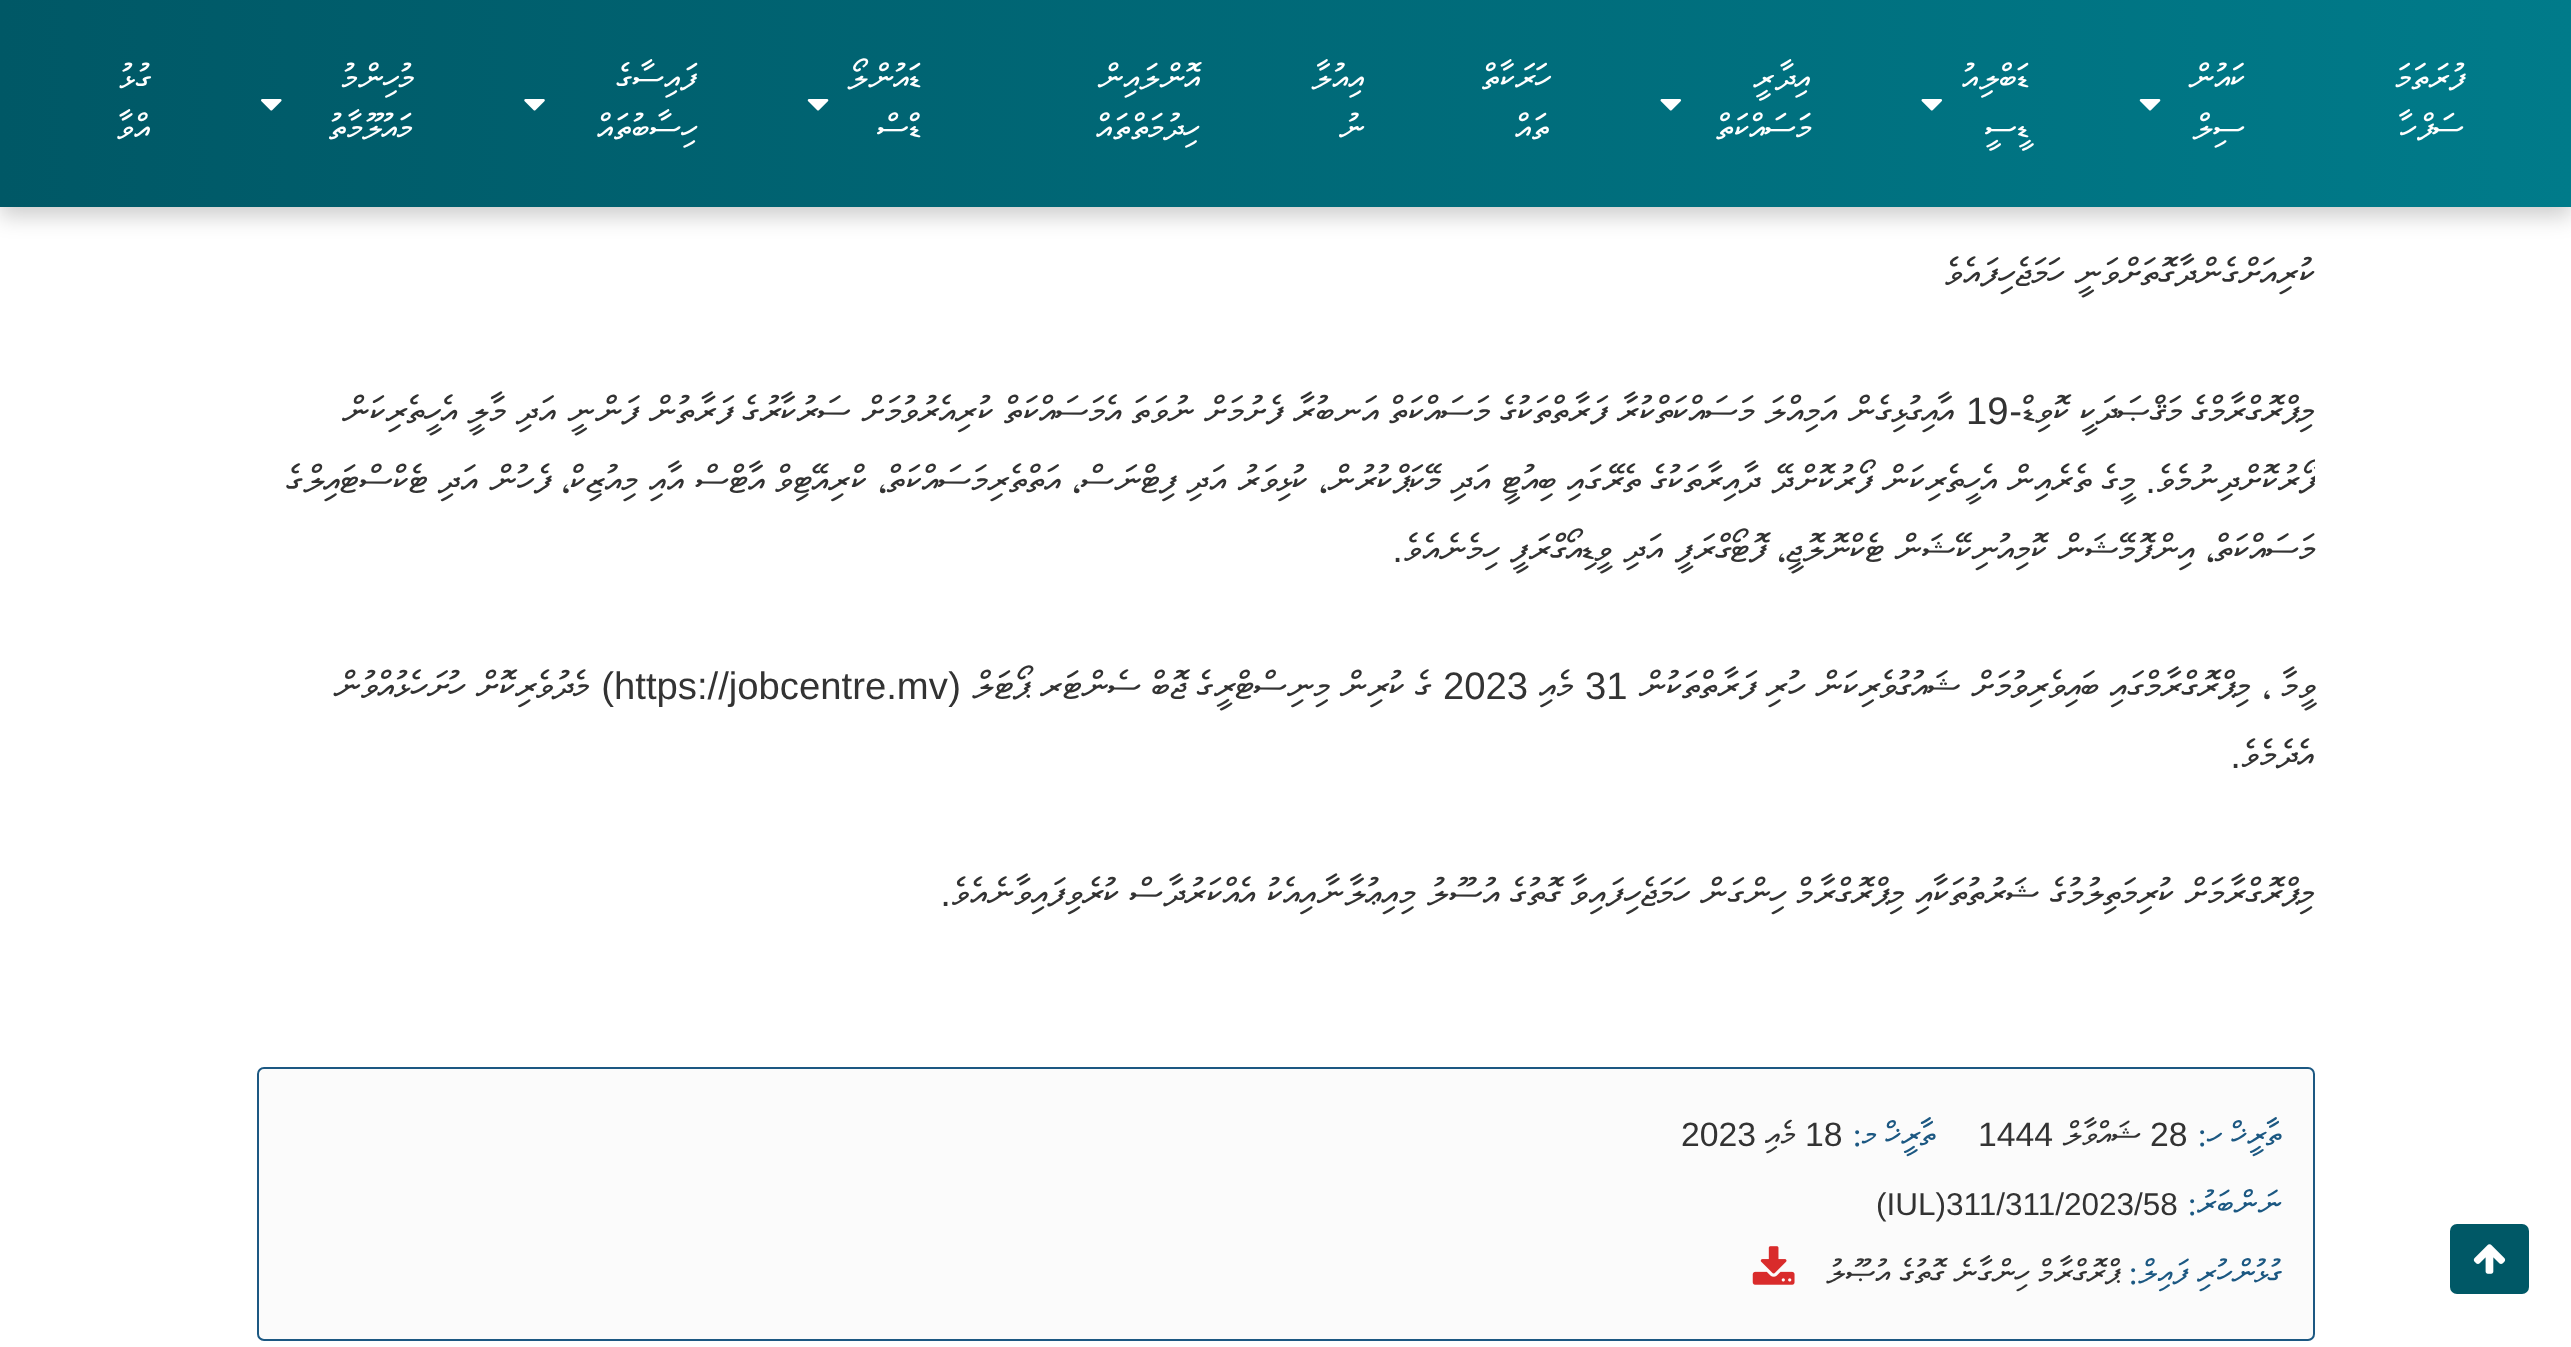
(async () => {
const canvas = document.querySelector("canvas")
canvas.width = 2571
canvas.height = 1347
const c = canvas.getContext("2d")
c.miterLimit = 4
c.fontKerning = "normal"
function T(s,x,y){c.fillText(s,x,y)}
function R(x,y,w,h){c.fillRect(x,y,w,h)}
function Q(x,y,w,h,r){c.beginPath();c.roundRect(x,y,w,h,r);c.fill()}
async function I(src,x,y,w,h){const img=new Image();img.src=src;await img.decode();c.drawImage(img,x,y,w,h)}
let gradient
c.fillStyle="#fff"
R(0,0,2571,1347)
c.fillStyle="#005866"
Q(2450,1224,79,70,7)
await I("1.png",2473,1244,33,30)
c.fillStyle="#00000033"
c.filter="blur(11px)"
c.beginPath()
c.rect(0,9,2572,207)
c.fill()
c.filter="none"
gradient = c.createLinearGradient(0,104,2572,103)
gradient.addColorStop(0,"#005866")
gradient.addColorStop(1,"#007b8a")
c.fillStyle = gradient
R(0,0,2571,207)
c.direction="rtl"
c.font="36px FreeSerif"
c.fillStyle="#fff"
T("ފުރަތަމަ",2464,90)
T("ސަފްހާ",2464,140)
T("ކައުން",2245,90)
await I("2.png",2139,99,22,12)
T("ސިލް",2245,140)
T("ޑަބްލިއު",2029,90)
await I("3.png",1921,99,22,12)
T("ޑީސީ",2029,140)
T("އިދާރީ",1811,90)
await I("4.png",1660,99,22,12)
T("މަސައްކަތް",1811,140)
T("ހަރަކާތް",1550,90)
T("ތައް",1550,140)
T("އިއުލާ",1365,90)
T("ނު",1365,140)
T("އޮންލައިން",1200,90)
T("ހިދުމަތްތައް",1200,140)
T("ޑައުންލޯ",921,90)
await I("5.png",807,99,22,12)
T("ޑްސް",921,140)
T("ފައިސާގެ",697,90)
await I("6.png",524,99,21,12)
T("ހިސާބުތައް",697,140)
T("މުހިންމު",413,90)
await I("7.png",261,99,21,12)
T("މައުލޫމާތު",413,140)
T("ގުޅު",150,90)
T("އްވާ",150,140)
c.wordSpacing="1px"
c.font="38.25px FreeSerif"
c.fillStyle="#333"
T("ކުރިއަށްގެންދާގޮތަށްވަނީ ހަމަޖެހިފައެވެ",2315,286)
T("މިޕްރޮގްރާމްގެ މަޤްޞަދަކީ ކޮވިޑް",2315,424)
c.wordSpacing="0px"
c.font="38.25px Liberation Sans"
T("-",2022,424)
c.direction="ltr"
T("19",1966,424)
c.wordSpacing="1px"
c.direction="rtl"
c.font="38.25px FreeSerif"
T("އާއިގުޅިގެން އަމިއްލަ މަސައްކަތްކުރާ ފަރާތްތަކުގެ މަސައްކަތް އަނބުރާ ފެށުމަށް ނުވަތަ އެމަސައްކަތް ކުރިއެރުވުމަށް ސަރުކާރުގެ ފަރާތުން ފަންނީ އަދި މާލީ އެހީތެރިކަން",1955,424)
c.save()
c.beginPath()
c.rect(257,173,2058,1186)
c.clip()
c.wordSpacing="0px"
T("ފޯރުކޮށްދިނުމެވެ",2315,493)
c.restore()
c.wordSpacing="0px"
c.font="38.25px Liberation Sans"
T(".",2156,493)
c.wordSpacing="1px"
c.font="38.25px FreeSerif"
T("މީގެ ތެރެއިން އެހީތެރިކަން ފޯރުކޮށްދޭ ދާއިރާތަކުގެ ތެރޭގައި ބިއުޓީ އަދި މޭކަޕްކުރުން، ކުޅިވަރު އަދި ފިޓްނަސް، އަތްތެރިމަސައްކަތް، ކްރިއޭޓިވް އާޓްސް އާއި މިއުޒިކް، ފެހުން އަދި ޓެކްސްޓައިލްގެ",2134,493)
T("މަސައްކަތް، އިންފޮމޭޝަން ކޮމިއުނިކޭޝަން ޓެކްނޮލޮޖީ، ފޮޓޯގްރަފީ އަދި ވީޑިއޯގްރަފީ ހިމެނެއެވެ",2315,562)
c.wordSpacing="0px"
c.font="38.25px Liberation Sans"
T(".",1403,562)
c.wordSpacing="1px"
c.font="38.25px FreeSerif"
T("ވީމާ ، މިޕްރޮގްރާމްގައި ބައިވެރިވުމަށް ޝައުގުވެރިކަން ހުރި ފަރާތްތަކުން",2315,699)
c.wordSpacing="0px"
c.direction="ltr"
c.font="38.25px Liberation Sans"
T("31",1585,699)
c.direction="rtl"
c.font="38.25px FreeSerif"
T("މެއި",1574,699)
c.direction="ltr"
c.font="38.25px Liberation Sans"
T("2023",1443,699)
c.wordSpacing="0.75px"
c.direction="rtl"
c.font="38.25px FreeSerif"
T("ގެ ކުރިން މިނިސްޓްރީގެ ޖޮބް ސެންޓަރ ޕޯޓަލް",1432,699)
c.wordSpacing="0px"
c.font="38.25px Liberation Sans"
T("(",961,699)
c.direction="ltr"
T("https://jobcentre.mv",614,699)
c.direction="rtl"
T(")",614,699)
c.wordSpacing="1px"
c.font="38.25px FreeSerif"
T("މެދުވެރިކޮށް ހުށަހެޅުއްވުން",590,699)
c.wordSpacing="0px"
T("އެދެމެވެ",2315,768)
c.font="38.25px Liberation Sans"
T(".",2241,768)
c.wordSpacing="1px"
c.font="38.25px FreeSerif"
T("މިޕްރޮގްރާމަށް ކުރިމަތިލުމުގެ ޝަރުތުތަކާއި މިޕްރޮގްރާމް ހިންގަން ހަމަޖެހިފައިވާ ގޮތުގެ އުސޫލު މިއިޢުލާނާއިއެކު އެއްކަރުދާސް ކުރެވިފައިވާނެއެވެ",2315,906)
c.wordSpacing="0px"
c.font="38.25px Liberation Sans"
T(".",951,906)
c.fillStyle="#fbfbfb"
c.beginPath()
c.roundRect(258,1068,2056,272,6)
c.fill()
c.strokeStyle="#1c5882"
c.lineWidth=2
c.stroke()
c.font="33.75px FreeSerif"
c.fillStyle="#1c5882"
T("ތާރީޚް ހ",2281,1146)
c.font="33.75px Liberation Serif"
T(":",2207,1146)
c.direction="ltr"
c.font="33.75px Liberation Sans"
c.fillStyle="#333"
T("28",2150,1146)
c.direction="rtl"
c.font="33.75px FreeSerif"
T("ޝައްވާލް",2141,1146)
c.direction="ltr"
c.font="33.75px Liberation Sans"
T("1444",1978,1146)
c.direction="rtl"
c.font="33.75px FreeSerif"
c.fillStyle="#1c5882"
T("ތާރީޚް މ",1935,1146)
c.font="33.75px Liberation Serif"
T(":",1862,1146)
c.direction="ltr"
c.font="33.75px Liberation Sans"
c.fillStyle="#333"
T("18",1805,1146)
c.direction="rtl"
c.font="33.75px FreeSerif"
T("މެއި",1796,1146)
c.direction="ltr"
c.font="33.75px Liberation Sans"
T("2023",1681,1146)
c.direction="rtl"
c.font="33.75px FreeSerif"
c.fillStyle="#1c5882"
T("ނަންބަރު",2281,1215)
c.font="33.75px Liberation Serif"
T(":",2197,1215)
c.direction="ltr"
c.font="31.5px Liberation Sans"
c.fillStyle="#333"
T("(IUL)311/311/2023/58",1876,1215)
c.direction="rtl"
c.font="33.75px FreeSerif"
c.fillStyle="#1c5882"
T("ގުޅުންހުރި ފައިލް",2281,1284)
c.font="33.75px Liberation Serif"
T(":",2138,1284)
c.wordSpacing="1px"
c.font="33.75px FreeSerif"
c.fillStyle="#333"
T("ޕްރޮގްރާމް ހިންގާނެ ގޮތުގެ އުޞޫލު",2119,1284)
await I("8.png",1752,1246,43,39)
})()
